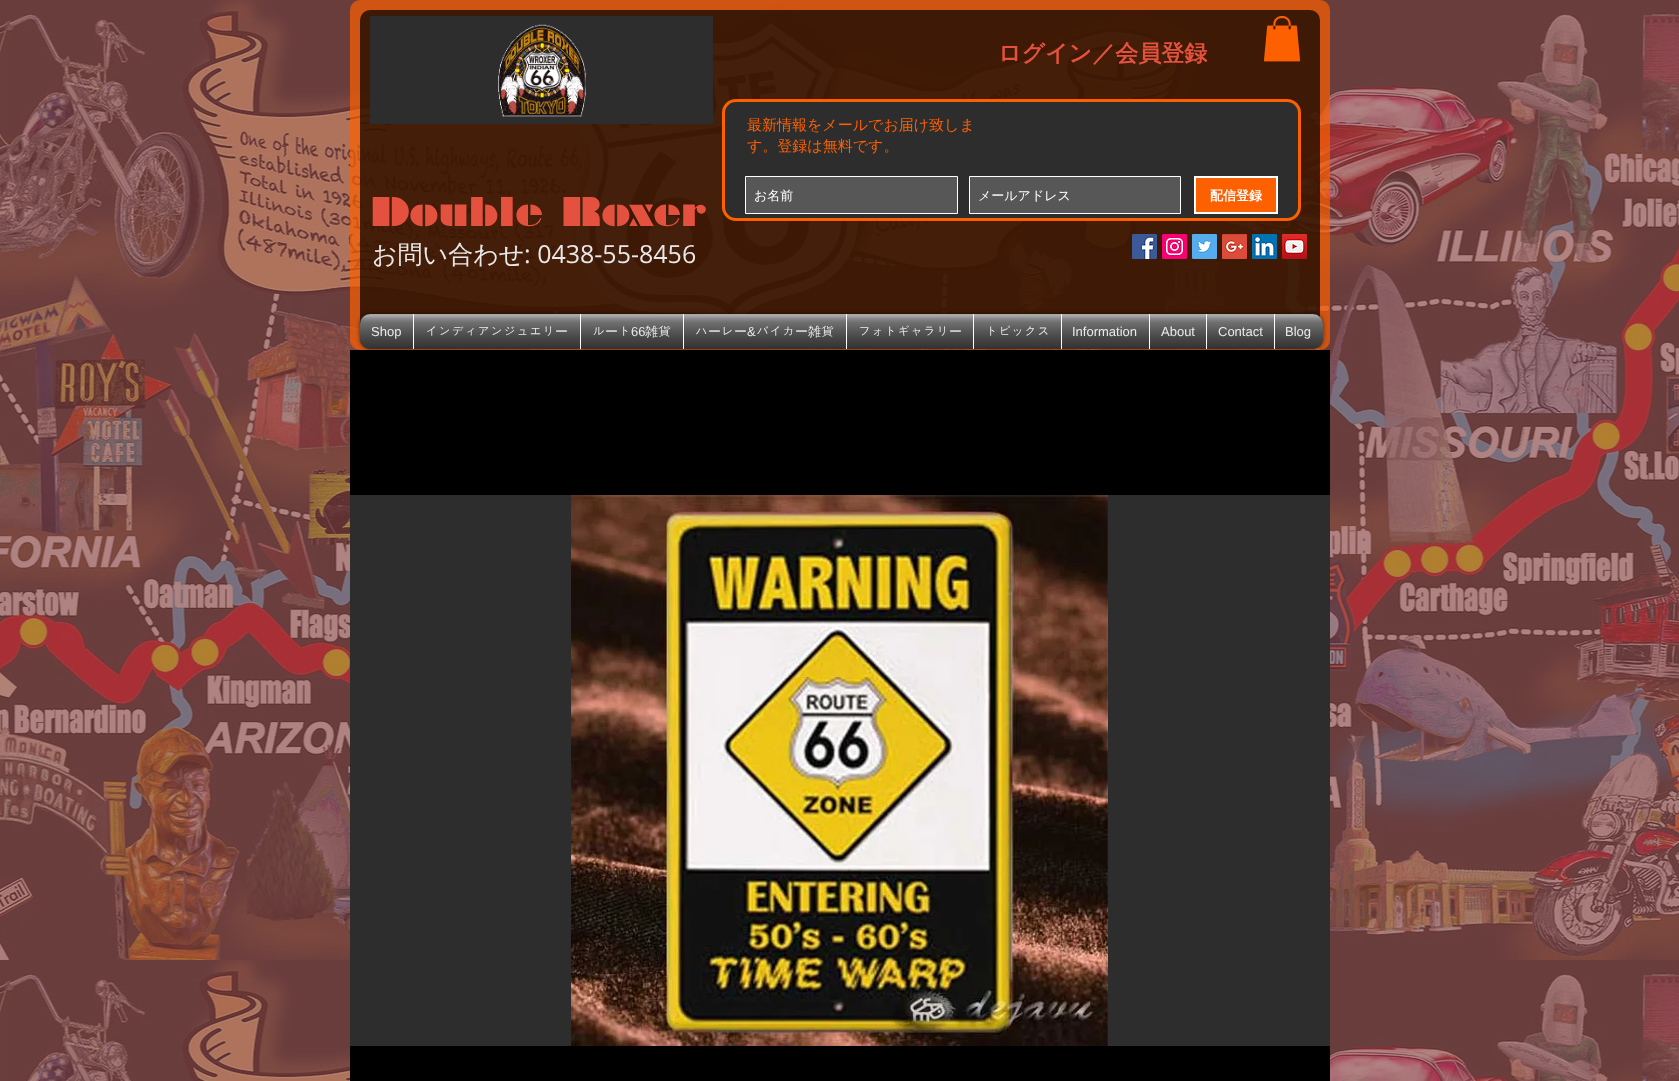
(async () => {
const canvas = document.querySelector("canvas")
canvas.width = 1679
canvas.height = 1081
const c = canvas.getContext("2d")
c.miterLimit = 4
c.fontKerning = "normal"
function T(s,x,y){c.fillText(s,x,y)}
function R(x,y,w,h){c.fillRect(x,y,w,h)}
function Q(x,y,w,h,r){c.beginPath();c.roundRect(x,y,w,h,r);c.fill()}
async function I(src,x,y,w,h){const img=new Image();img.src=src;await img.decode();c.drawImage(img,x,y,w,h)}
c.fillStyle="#8a4646"
R(0,0,1679,1081)
await I("1.png",0,0,1679,1081)
c.fillStyle="#fc6000b3"
Q(350,0,980,350,10)
c.fillStyle="#000000b3"
Q(360,10,960,330,10)
c.fillStyle="#2d2d2d"
R(370,16,343,108)
await I("2.png",498,24,88,93)
c.font="bold 23px WenQuanYi Zen Hei"
c.fillStyle="#e4523f"
T("ログイン／会員登録",998,61)
await I("3.png",1263,16,38,46)
c.fillStyle="#2d2d2d"
c.beginPath()
c.roundRect(723.5,100.5,576,119,12.5)
c.fill()
c.strokeStyle="#fc6000"
c.lineWidth=3
c.stroke()
c.font="500 15px WenQuanYi Zen Hei"
c.fillStyle="#fc6000"
T("最新情報をメールでお届け致しま",747,130)
T("す。登録は無料です。",747,151)
c.fillStyle="#575757"
c.beginPath()
c.rect(745.5,176.5,212,37)
c.fill()
c.strokeStyle="#fff"
c.lineWidth=1
c.stroke()
c.font="500 13px WenQuanYi Zen Hei"
c.fillStyle="#fff"
T("お名前",754,200)
c.fillStyle="#575757"
c.beginPath()
c.rect(969.5,176.5,211,37)
c.fill()
c.stroke()
c.fillStyle="#fff"
T("メールアドレス",978,200)
c.fillStyle="#fc6000"
c.beginPath()
c.rect(1195,177,82,36)
c.fill()
c.lineWidth=2
c.stroke()
c.font="bold 13px WenQuanYi Zen Hei"
c.fillStyle="#fff"
T("配信登録",1210,200)
c.font="38px 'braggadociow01'"
c.fillStyle="#e4523f"
T("Double Roxer",370,226)
c.font="500 25px WenQuanYi Zen Hei"
c.fillStyle="#e8e8e8"
T("お問い合わせ",372,263)
c.font="25px Open Sans"
T(": 0438-55-8456",524,263)
await I("4.png",1132,234,25,25)
await I("5.png",1162,234,25,25)
await I("6.png",1192,234,25,25)
await I("7.png",1222,234,25,25)
await I("8.png",1252,234,25,25)
await I("9.png",1282,234,25,25)
c.fillStyle="#000"
R(350,350,980,731)
c.fillStyle="#00000099"
c.filter="blur(2px)"
c.beginPath()
c.roundRect(360,314,963,35,10)
c.fill()
c.filter="none"
await I("10.png",360,314,963,35)
await I("11.png",360,323,963,26)
c.fillStyle="#2d2d2d"
c.beginPath()
c.roundRect(360,314,53,35,[10,0,0,10])
c.fill()
c.font="13px Liberation Sans"
c.fillStyle="#fff"
T("Shop",371,336)
await I("12.png",360,314,53,35)
await I("13.png",360,317,53,32)
c.fillStyle="#2d2d2d"
R(414,314,166,35)
c.fillStyle="#fff"
R(413,314,1,35)
c.font="13px Dotum"
T("インディアンジュエリ",425,336)
c.font="500 13px WenQuanYi Zen Hei"
T("ー",555,336)
await I("14.png",414,314,166,35)
await I("15.png",414,317,166,32)
c.fillStyle="#2d2d2d"
R(581,314,102,35)
c.fillStyle="#fff"
R(580,314,1,35)
c.font="13px Dotum"
T("ル",592,336)
c.font="500 13px WenQuanYi Zen Hei"
T("ー",605,336)
c.font="13px Dotum"
T("ト",618,336)
c.font="13px Liberation Sans"
T("66",631,336)
c.font="500 13px WenQuanYi Zen Hei"
T("雑",645,336)
c.font="13px Dotum"
T("貨",658,336)
await I("16.png",581,314,102,35)
await I("17.png",581,317,102,32)
c.fillStyle="#2d2d2d"
R(684,314,162,35)
c.fillStyle="#fff"
R(683,314,1,35)
T("ハ",695,336)
c.font="500 13px WenQuanYi Zen Hei"
T("ー",708,336)
c.font="13px Dotum"
T("レ",721,336)
c.font="500 13px WenQuanYi Zen Hei"
T("ー",734,336)
c.font="13px Liberation Sans"
T("&",747,336)
c.font="13px Dotum"
T("バイカ",756,336)
c.font="500 13px WenQuanYi Zen Hei"
T("ー雑",795,336)
c.font="13px Dotum"
T("貨",821,336)
await I("18.png",684,314,162,35)
await I("19.png",684,317,162,32)
c.fillStyle="#2d2d2d"
R(847,314,126,35)
c.fillStyle="#fff"
R(846,314,1,35)
T("フォトギャラリ",858,336)
c.font="500 13px WenQuanYi Zen Hei"
T("ー",949,336)
await I("20.png",847,314,126,35)
await I("21.png",847,317,126,32)
c.fillStyle="#2d2d2d"
R(974,314,87,35)
c.fillStyle="#fff"
R(973,314,1,35)
c.font="13px Dotum"
T("トピックス",985,336)
await I("22.png",974,314,87,35)
await I("23.png",974,317,87,32)
c.fillStyle="#2d2d2d"
R(1062,314,87,35)
c.fillStyle="#fff"
R(1061,314,1,35)
c.font="13px Liberation Sans"
T("Information",1072,336)
await I("24.png",1062,314,87,35)
await I("25.png",1062,317,87,32)
c.fillStyle="#2d2d2d"
R(1150,314,56,35)
c.fillStyle="#fff"
R(1149,314,1,35)
T("About",1161,336)
await I("26.png",1150,314,56,35)
await I("27.png",1150,317,56,32)
c.fillStyle="#2d2d2d"
R(1207,314,67,35)
c.fillStyle="#fff"
R(1206,314,1,35)
T("Contact",1218,336)
await I("28.png",1207,314,67,35)
await I("29.png",1207,317,67,32)
c.fillStyle="#2d2d2d"
c.beginPath()
c.roundRect(1274,314,49,35,[0,10,10,0])
c.fill()
c.fillStyle="#fff"
R(1274,314,1,35)
T("Blog",1285,336)
await I("30.png",1275,314,48,35)
await I("31.png",1275,317,48,32)
c.fillStyle="#2d2d2d"
R(350,495,980,551)
await I("32.png",571,495,537,551)
})()
